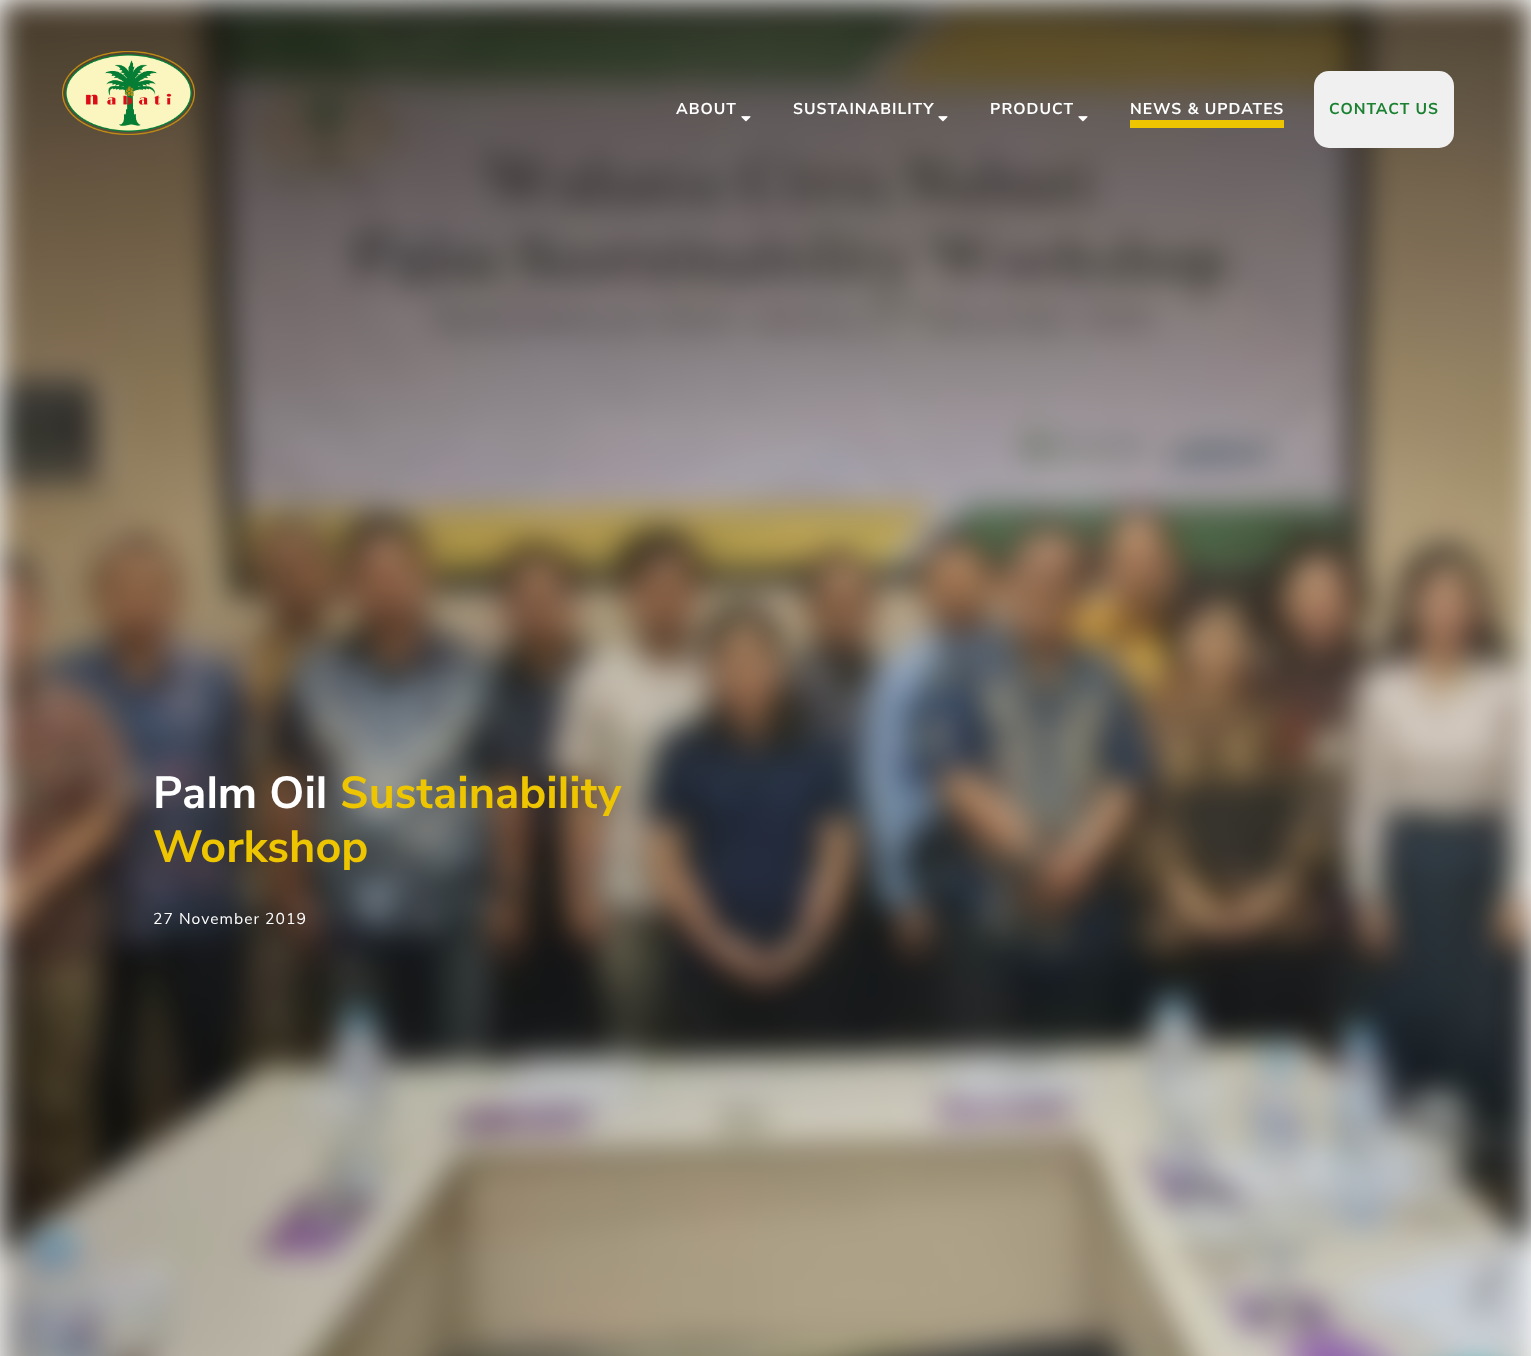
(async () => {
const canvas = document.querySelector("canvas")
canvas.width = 1531
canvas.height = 1356
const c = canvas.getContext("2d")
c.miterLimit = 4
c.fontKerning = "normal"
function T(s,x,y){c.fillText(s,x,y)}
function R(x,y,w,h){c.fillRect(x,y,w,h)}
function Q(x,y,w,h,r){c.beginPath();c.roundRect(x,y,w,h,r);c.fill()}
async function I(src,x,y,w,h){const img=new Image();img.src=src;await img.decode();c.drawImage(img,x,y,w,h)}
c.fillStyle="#fff"
R(0,0,1531,1356)
await I("5.png",0,0,1531,1356)
await I("1.png",62,51,133,84)
c.letterSpacing="1px"
c.font="bold 15.75px Nunito Sans"
T("ABOUT",676,114)
await I("2.png",741,116,10,6)
T("SUSTAINABILITY",793,114)
await I("3.png",938,116,10,6)
T("PRODUCT",990,114)
await I("4.png",1078,116,10,6)
T("NEWS & UPDATES",1130,114)
c.fillStyle="#edc500"
R(1130,120,154,8)
c.fillStyle="#f0f0f0"
Q(1314,71,140,77,15)
c.fillStyle="#1b8131"
T("CONTACT US",1329,114)
c.letterSpacing="0px"
c.font="bold 45px Nunito Sans"
c.fillStyle="#fff"
T("Palm Oil",153,808)
c.fillStyle="#edc500"
T("Sustainability",340,808)
T("Workshop",153,862)
c.letterSpacing="1px"
c.font="15.75px Nunito Sans"
c.fillStyle="#fff"
T("27 November 2019",153,924)
})()
